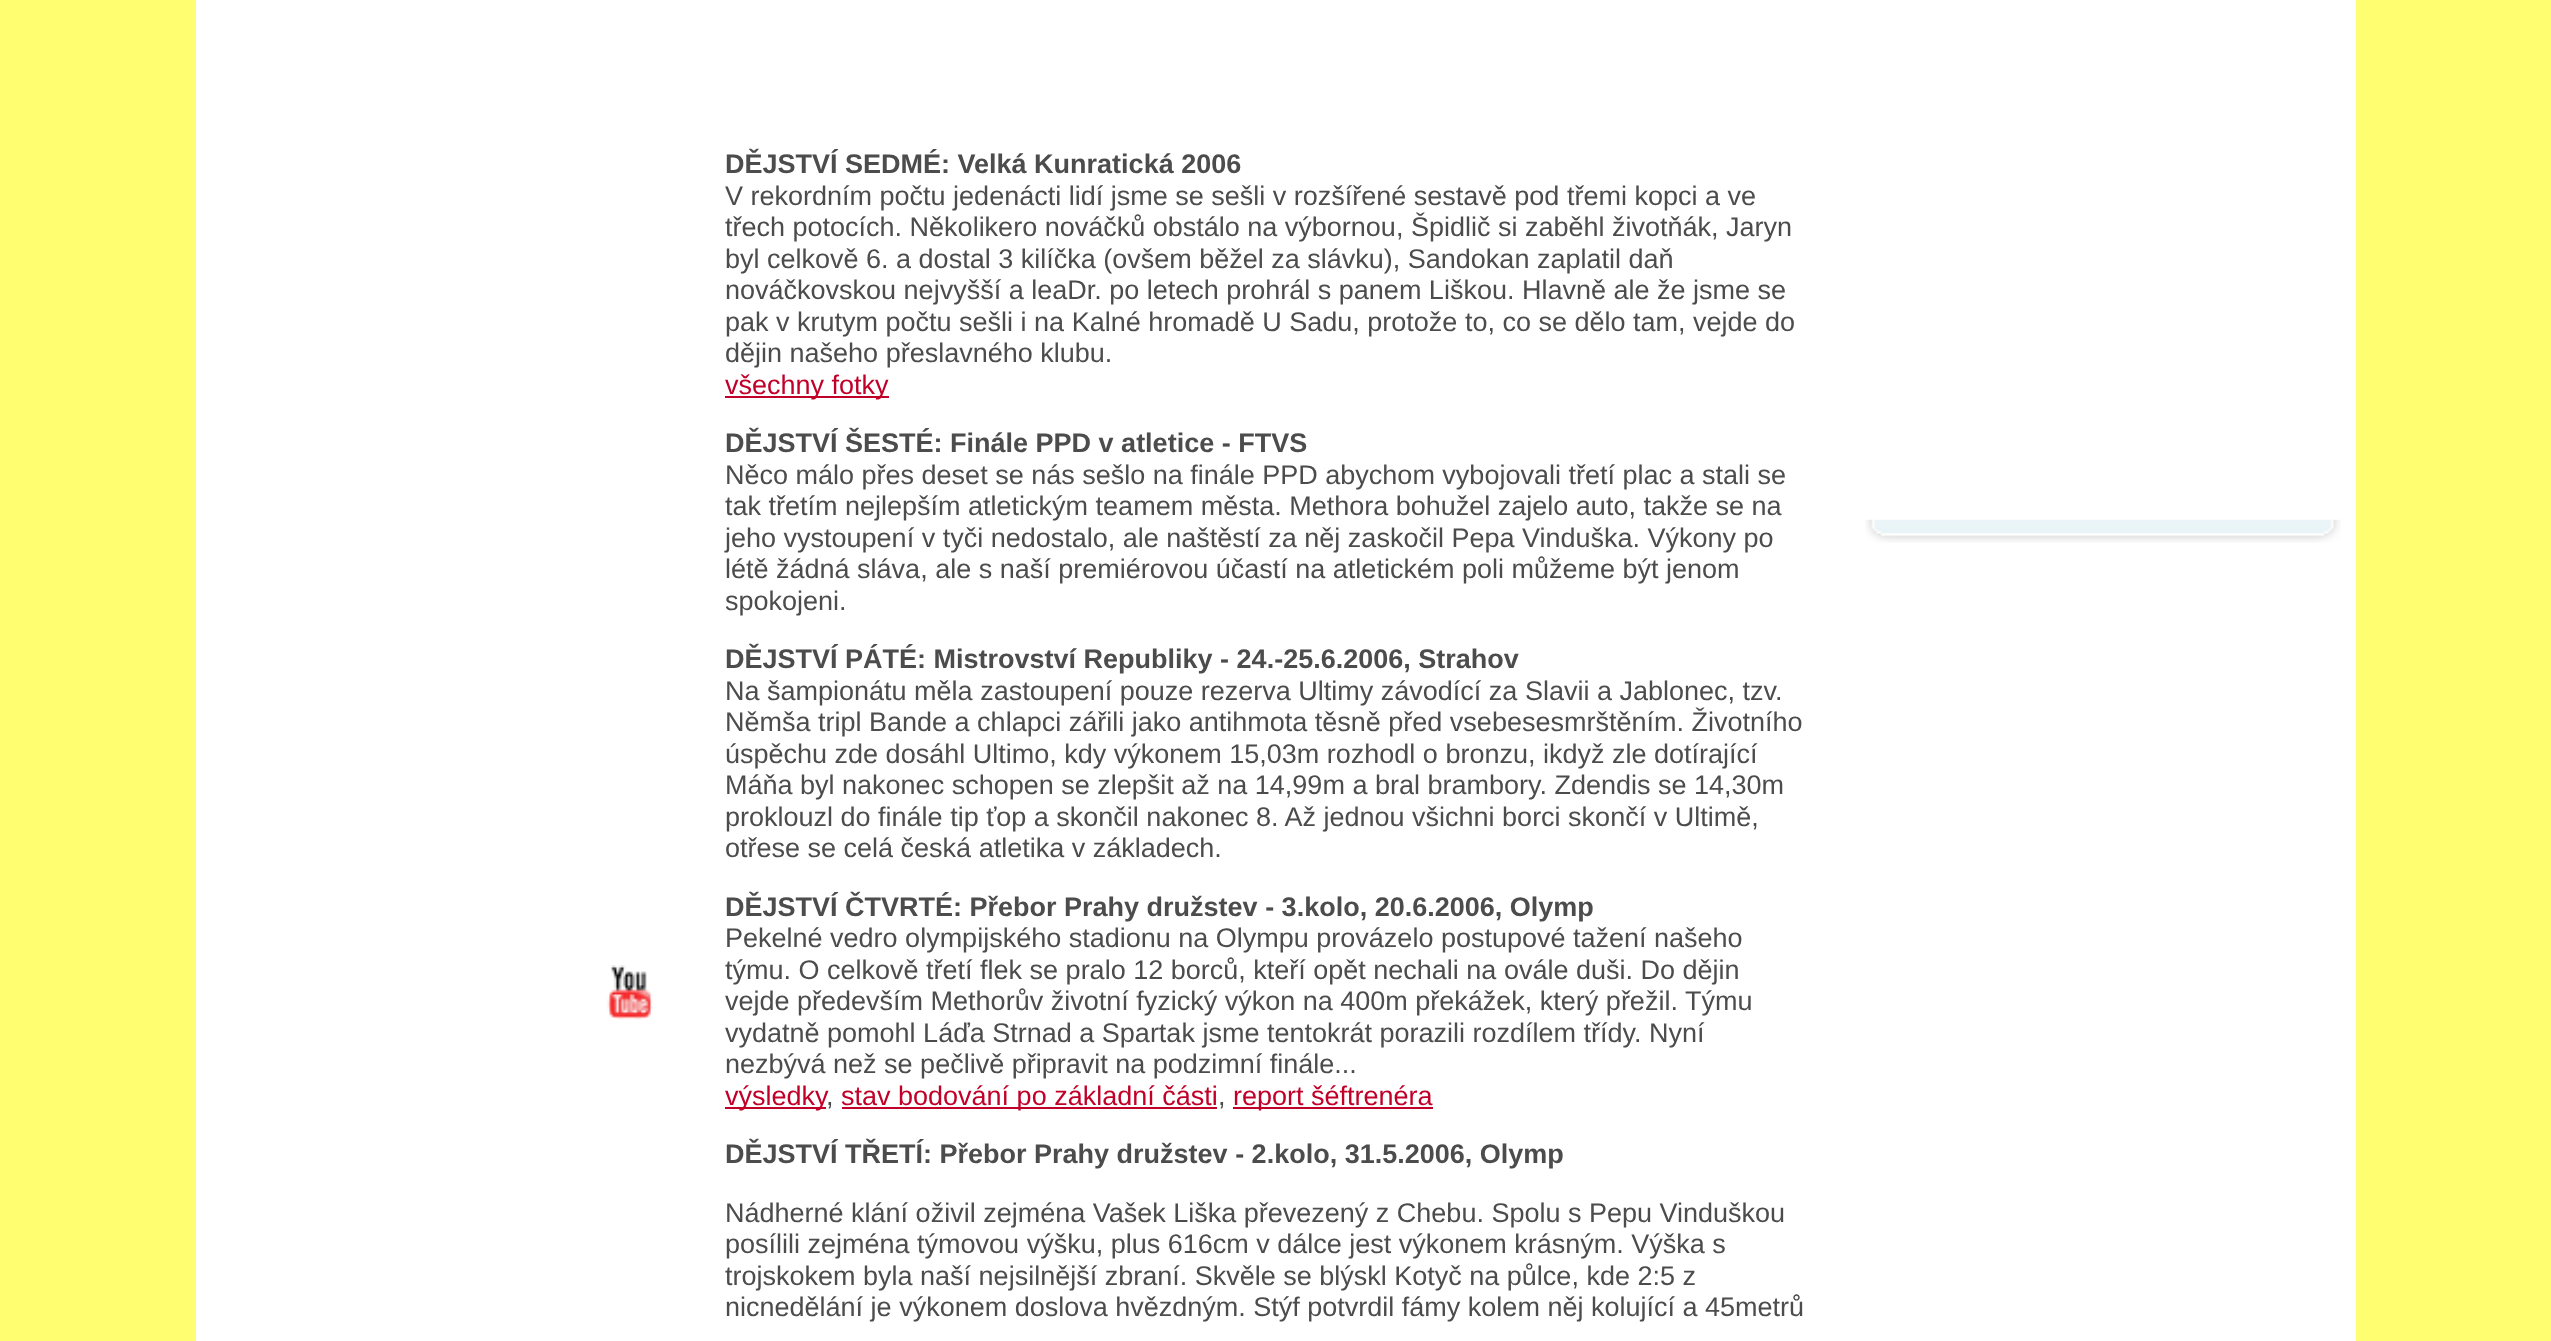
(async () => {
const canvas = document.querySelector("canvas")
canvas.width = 2551
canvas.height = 1341
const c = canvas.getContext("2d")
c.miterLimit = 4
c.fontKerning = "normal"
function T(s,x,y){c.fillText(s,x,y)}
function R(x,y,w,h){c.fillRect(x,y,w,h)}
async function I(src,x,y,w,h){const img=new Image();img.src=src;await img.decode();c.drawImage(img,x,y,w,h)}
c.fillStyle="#fffe70"
R(0,0,2551,1341)
c.fillStyle="#fff"
R(196,0,2160,1341)
c.font="bold 27px Liberation Sans"
c.fillStyle="#4c4c4c"
T("DĚJSTVÍ SEDMÉ: Velká Kunratická 2006",725,173)
c.font="27px Liberation Sans"
T("V rekordním počtu jedenácti lidí jsme se sešli v rozšířené sestavě pod třemi kopci a ve",725,205)
T("třech potocích. Několikero nováčků obstálo na výbornou, Špidlič si zaběhl životňák, Jaryn",725,236)
T("byl celkově 6. a dostal 3 kilíčka (ovšem běžel za slávku), Sandokan zaplatil daň",725,268)
T("nováčkovskou nejvyšší a leaDr. po letech prohrál s panem Liškou. Hlavně ale že jsme se",725,299)
T("pak v krutym počtu sešli i na Kalné hromadě U Sadu, protože to, co se dělo tam, vejde do",725,331)
T("dějin našeho přeslavného klubu.",725,362)
c.fillStyle="#c10029"
R(725,396,164,2)
T("všechny fotky",725,394)
c.font="bold 27px Liberation Sans"
c.fillStyle="#4c4c4c"
T("DĚJSTVÍ ŠESTÉ: Finále PPD v atletice - FTVS",725,452)
c.font="27px Liberation Sans"
T("Něco málo přes deset se nás sešlo na finále PPD abychom vybojovali třetí plac a stali se",725,484)
T("tak třetím nejlepším atletickým teamem města. Methora bohužel zajelo auto, takže se na",725,515)
T("jeho vystoupení v tyči nedostalo, ale naštěstí za něj zaskočil Pepa Vinduška. Výkony po",725,547)
T("létě žádná sláva, ale s naší premiérovou účastí na atletickém poli můžeme být jenom",725,578)
T("spokojeni.",725,610)
c.font="bold 27px Liberation Sans"
T("DĚJSTVÍ PÁTÉ: Mistrovství Republiky - 24.-25.6.2006, Strahov",725,668)
c.font="27px Liberation Sans"
T("Na šampionátu měla zastoupení pouze rezerva Ultimy závodící za Slavii a Jablonec, tzv.",725,700)
T("Němša tripl Bande a chlapci zářili jako antihmota těsně před vsebesesmrštěním. Životního",725,731)
T("úspěchu zde dosáhl Ultimo, kdy výkonem 15,03m rozhodl o bronzu, ikdyž zle dotírající",725,763)
T("Máňa byl nakonec schopen se zlepšit až na 14,99m a bral brambory. Zdendis se 14,30m",725,794)
T("proklouzl do finále tip ťop a skončil nakonec 8. Až jednou všichni borci skončí v Ultimě,",725,826)
T("otřese se celá česká atletika v základech.",725,857)
c.font="bold 27px Liberation Sans"
T("DĚJSTVÍ ČTVRTÉ: Přebor Prahy družstev - 3.kolo, 20.6.2006, Olymp",725,916)
c.font="27px Liberation Sans"
T("Pekelné vedro olympijského stadionu na Olympu provázelo postupové tažení našeho",725,947)
T("týmu. O celkově třetí flek se pralo 12 borců, kteří opět nechali na ovále duši. Do dějin",725,979)
T("vejde především Methorův životní fyzický výkon na 400m překážek, který přežil. Týmu",725,1010)
T("vydatně pomohl Láďa Strnad a Spartak jsme tentokrát porazili rozdílem třídy. Nyní",725,1042)
T("nezbývá než se pečlivě připravit na podzimní finále...",725,1073)
c.fillStyle="#c10029"
R(725,1107,101,2)
T("výsledky",725,1105)
c.fillStyle="#4c4c4c"
T(",",826,1105)
c.fillStyle="#c10029"
R(842,1107,375,2)
T("stav bodování po základní části",841,1105)
c.fillStyle="#4c4c4c"
T(",",1218,1105)
c.fillStyle="#c10029"
R(1233,1107,200,2)
T("report šéftrenéra",1233,1105)
c.font="bold 27px Liberation Sans"
c.fillStyle="#4c4c4c"
T("DĚJSTVÍ TŘETÍ: Přebor Prahy družstev - 2.kolo, 31.5.2006, Olymp",725,1163)
c.font="27px Liberation Sans"
T("Nádherné klání oživil zejména Vašek Liška převezený z Chebu. Spolu s Pepu Vinduškou",725,1222)
T("posílili zejména týmovou výšku, plus 616cm v dálce jest výkonem krásným. Výška s",725,1253)
T("trojskokem byla naší nejsilnější zbraní. Skvěle se blýskl Kotyč na půlce, kde 2:5 z",725,1285)
T("nicnedělání je výkonem doslova hvězdným. Stýf potvrdil fámy kolem něj kolující a 45metrů",725,1316)
await I("1.png",1865,519,476,24)
await I("2.png",607,965,46,55)
})()
